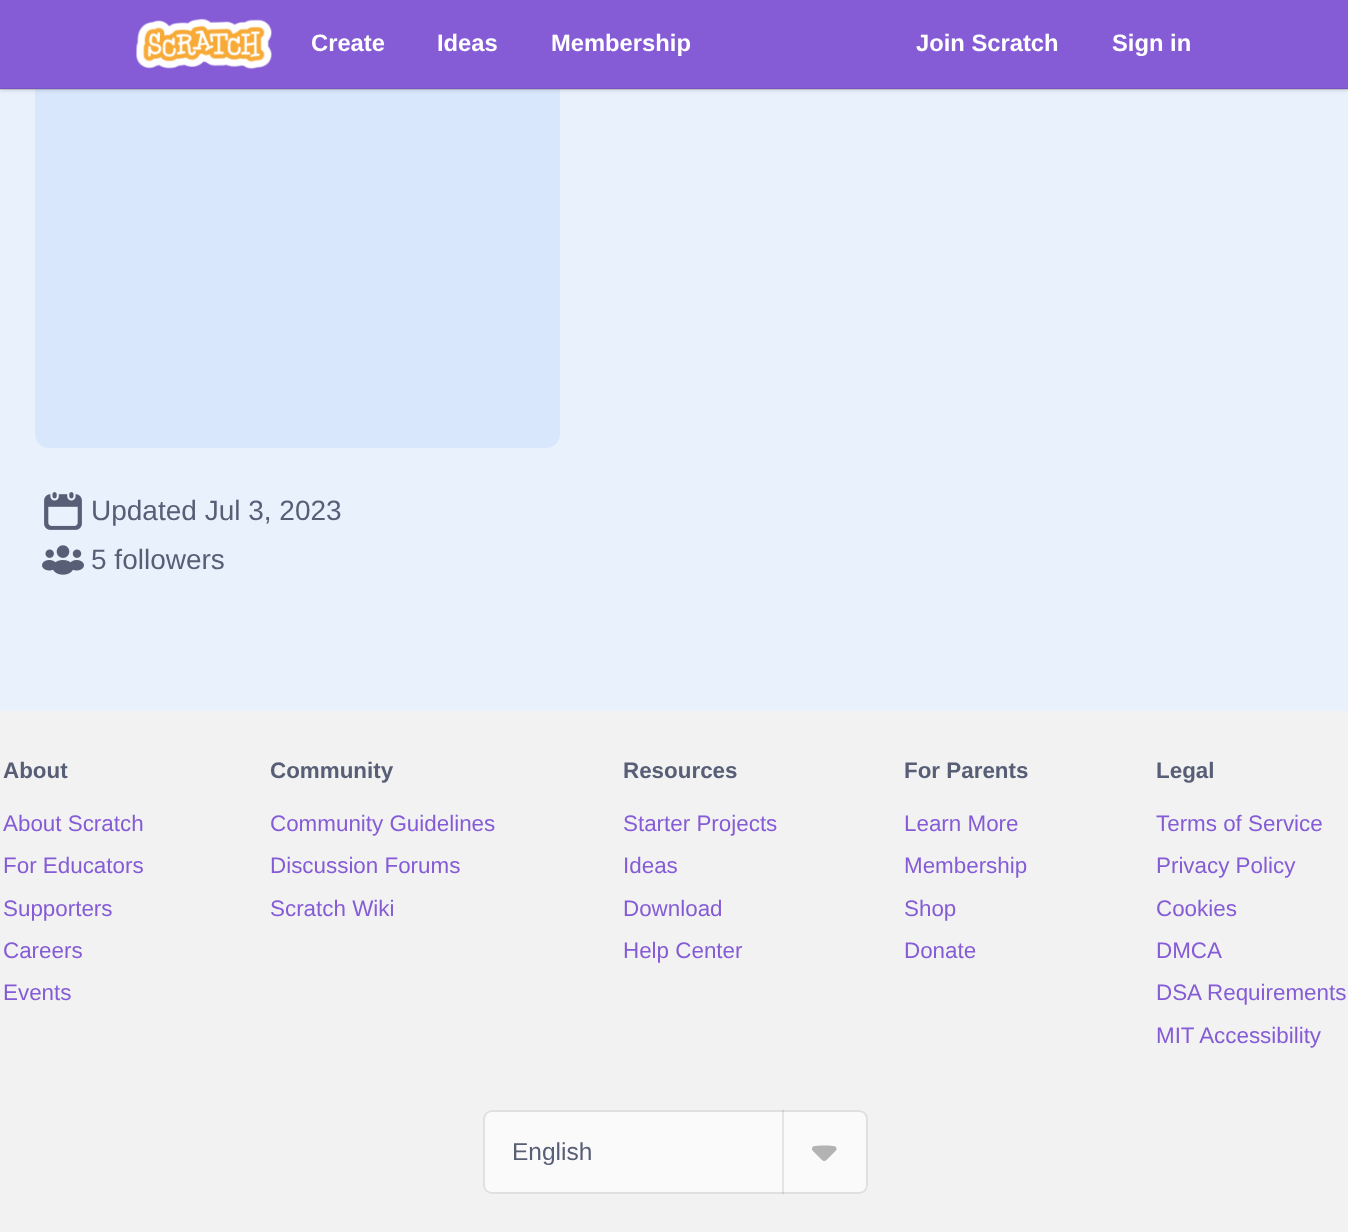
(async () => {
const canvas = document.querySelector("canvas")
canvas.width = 1348
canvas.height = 1232
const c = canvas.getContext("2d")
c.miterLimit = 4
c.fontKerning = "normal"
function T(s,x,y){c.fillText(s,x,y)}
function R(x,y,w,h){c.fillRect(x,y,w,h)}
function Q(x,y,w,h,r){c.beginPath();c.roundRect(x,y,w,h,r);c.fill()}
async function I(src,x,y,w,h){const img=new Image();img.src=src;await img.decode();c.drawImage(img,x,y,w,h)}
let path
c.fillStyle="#e9f1fc"
R(0,0,1348,1232)
c.fillStyle="#d9e7fc"
Q(35,-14,525,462,14)
c.fillStyle="#00000040"
c.filter="blur(2.5px)"
c.beginPath()
c.rect(0,0,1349,89)
c.fill()
c.filter="none"
c.fillStyle="#855cd6"
R(0,0,1348,89)
c.fillStyle="#0000001a"
R(0,88,1348,2)
await I("1.png",136,18,136,51)
c.font="bold 23.75px Liberation Sans"
c.fillStyle="#fff"
T("Create",311,51)
T("Ideas",437,51)
T("Membership",551,51)
T("Join Scratch",916,51)
T("Sign in",1112,51)
await I("2.png",44,492,38,38)
c.font="28px Liberation Sans"
c.fillStyle="#575e75"
T("Updated Jul 3, 2023",91,520)
await I("3.png",42,545,42,30)
T("5 followers",91,569)
c.fillStyle="#f2f2f2"
R(0,711,1348,521)
c.font="bold 22.4px Liberation Sans"
c.fillStyle="#575e75"
T("About",3,778)
c.font="22.4px Liberation Sans"
c.fillStyle="#855cd6"
T("About Scratch",3,831)
T("For Educators",3,873)
T("Supporters",3,916)
T("Careers",3,958)
T("Events",3,1000)
c.font="bold 22.4px Liberation Sans"
c.fillStyle="#575e75"
T("Community",270,778)
c.font="22.4px Liberation Sans"
c.fillStyle="#855cd6"
T("Community Guidelines",270,831)
T("Discussion Forums",270,873)
T("Scratch Wiki",270,916)
c.font="bold 22.4px Liberation Sans"
c.fillStyle="#575e75"
T("Resources",623,778)
c.font="22.4px Liberation Sans"
c.fillStyle="#855cd6"
T("Starter Projects",623,831)
T("Ideas",623,873)
T("Download",623,916)
T("Help Center",623,958)
c.font="bold 22.4px Liberation Sans"
c.fillStyle="#575e75"
T("For Parents",904,778)
c.font="22.4px Liberation Sans"
c.fillStyle="#855cd6"
T("Learn More",904,831)
T("Membership",904,873)
T("Shop",904,916)
T("Donate",904,958)
c.font="bold 22.4px Liberation Sans"
c.fillStyle="#575e75"
T("Legal",1156,778)
c.font="22.4px Liberation Sans"
c.fillStyle="#855cd6"
T("Terms of Service",1156,831)
T("Privacy Policy",1156,873)
T("Cookies",1156,916)
T("DMCA",1156,958)
T("DSA Requirements",1156,1000)
T("MIT Accessibility",1156,1043)
c.fillStyle="#fafafa"
Q(483,1110,385,84,9)
c.fillStyle="#b3b3b3"
path = new Path2D("M824 1161c-.5 0-1.5-.5-2-1l-9-9c-1.5-1-1.5-3 0-4.5c1.5-1.5 21-1.5 22.5 0c1.5 1.5 1.5 3.5 0 4.5l-9 9c-.5 .5-1.5 1-2.5 1z")
c.fill(path)
c.fillStyle="#e5e4e4"
R(782,1110,2,84)
c.beginPath()
c.roundRect(484,1111,383,82,8)
c.strokeStyle="#0000001a"
c.lineWidth=2
c.stroke()
c.font="24.5px Liberation Sans"
c.fillStyle="#575e75"
T("English",512,1160)
})()
